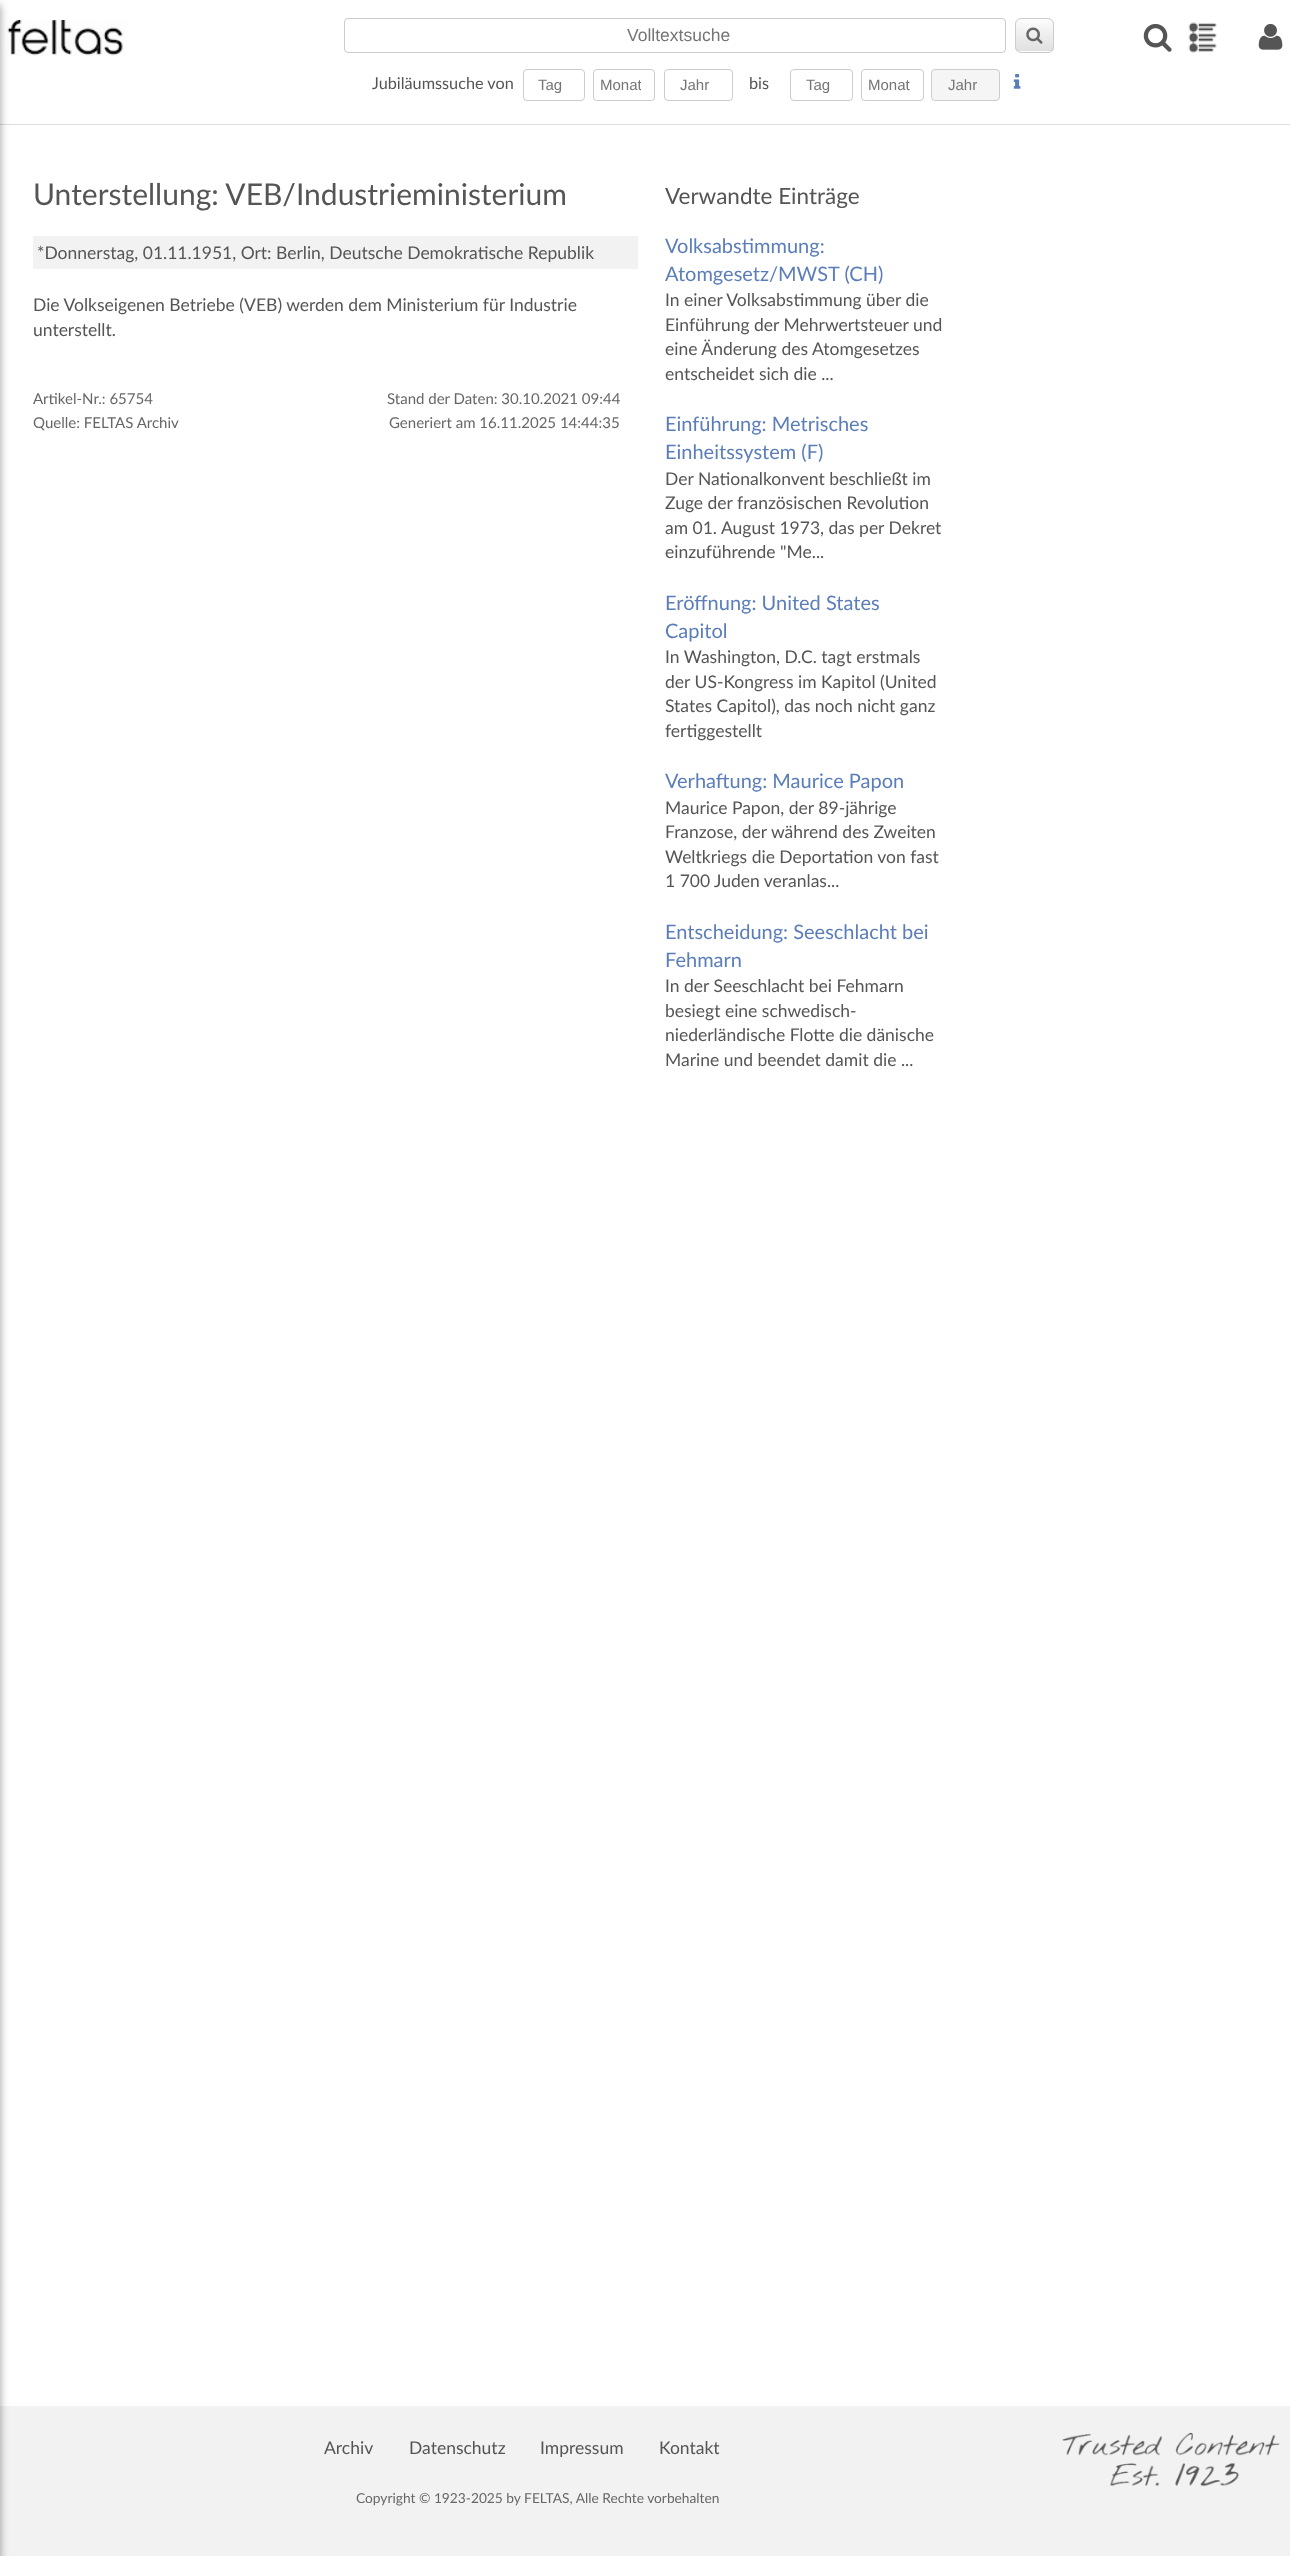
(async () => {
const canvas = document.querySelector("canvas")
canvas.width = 1290
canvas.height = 2556
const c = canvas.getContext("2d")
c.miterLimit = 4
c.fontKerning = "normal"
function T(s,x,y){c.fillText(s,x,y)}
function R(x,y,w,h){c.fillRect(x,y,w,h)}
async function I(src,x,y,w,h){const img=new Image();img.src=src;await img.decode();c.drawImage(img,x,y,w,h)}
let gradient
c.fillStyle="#fff"
R(0,0,1290,2556)
c.fillStyle="#ddd"
R(0,124,1290,1)
await I("1.png",7,20,118,36)
c.fillStyle="#f2f2f2"
R(0,2406,1290,150)
c.fillStyle="#00000066"
c.filter="blur(4px)"
c.beginPath()
c.rect(-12,5,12,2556)
c.fill()
c.filter="none"
c.beginPath()
c.roundRect(344.5,18.5,661,34,3.5)
c.strokeStyle="#ccc"
c.stroke()
c.font="17.5px Liberation Sans"
c.fillStyle="#757575"
T("Volltextsuche",627,41)
c.save()
c.beginPath()
c.roundRect(1015,18,39,35,6)
c.clip()
gradient = c.createLinearGradient(1034,19,1034,51)
gradient.addColorStop(0,"#fcfcfc")
gradient.addColorStop(1,"#e0e0e0")
c.fillStyle = gradient
R(1015,19,39,32)
gradient = c.createLinearGradient(1034,51,1034,84)
gradient.addColorStop(0,"#fcfcfc")
gradient.addColorStop(1,"#e0e0e0")
c.fillStyle = gradient
R(1015,51,39,2)
c.restore()
c.beginPath()
c.roundRect(1015.5,18.5,38,34,5.5)
c.stroke()
await I("2.png",1026,27,17,17)
c.font="16.25px Lato"
c.fillStyle="#555"
T("Jubiläumssuche von",372,89)
c.beginPath()
c.roundRect(523.5,69.5,61,31,3.5)
c.stroke()
c.font="15px Liberation Sans"
c.fillStyle="#757575"
T("Tag",538,90)
c.beginPath()
c.roundRect(593.5,69.5,61,31,3.5)
c.stroke()
c.save()
c.beginPath()
c.rect(594,76,47,18)
c.clip()
T("Monat",600,90)
c.restore()
c.beginPath()
c.roundRect(664.5,69.5,68,31,3.5)
c.stroke()
T("Jahr",680,90)
c.font="16.25px Lato"
c.fillStyle="#555"
T("bis",749,89)
c.beginPath()
c.roundRect(790.5,69.5,62,31,3.5)
c.stroke()
c.font="15px Liberation Sans"
c.fillStyle="#757575"
T("Tag",806,90)
c.beginPath()
c.roundRect(861.5,69.5,62,31,3.5)
c.stroke()
T("Monat",868,90)
c.fillStyle="#f5f5f5"
c.beginPath()
c.roundRect(931.5,69.5,68,31,3.5)
c.fill()
c.stroke()
c.fillStyle="#757575"
T("Jahr",948,90)
await I("3.png",1013,74,8,15)
await I("4.png",1143,23,29,29)
await I("5.png",1188,22,29,31)
await I("6.png",1258,23,25,27)
c.font="30px Lato"
c.fillStyle="#555"
T("Unterstellung: VEB/Industrieministerium",33,205)
c.fillStyle="#f2f2f2"
R(33,236,605,33)
c.font="17.5px Lato"
c.fillStyle="#555"
T("*Donnerstag, 01.11.1951, Ort: Berlin, Deutsche Demokratische Republik",37,259)
T("Die Volkseigenen Betriebe (VEB) werden dem Ministerium für Industrie",33,311)
T("unterstellt.",33,336)
c.font="15px Lato"
c.fillStyle="#666"
T("Artikel-Nr.: 65754",33,404)
T("Quelle: FELTAS Archiv",33,428)
T("Stand der Daten: 30.10.2021 09:44",387,404)
T("Generiert am 16.11.2025 14:44:35",389,428)
c.font="22.5px Lato"
c.fillStyle="#555"
T("Verwandte Einträge",665,204)
c.font="20px Lato"
c.fillStyle="#5b7eb9"
T("Volksabstimmung:",665,253)
T("Atomgesetz/MWST (CH)",665,281)
c.font="17.5px Lato"
c.fillStyle="#555"
T("In einer Volksabstimmung über die",665,306)
T("Einführung der Mehrwertsteuer und",665,331)
T("eine Änderung des Atomgesetzes",665,355)
T("entscheidet sich die ...",665,380)
c.font="20px Lato"
c.fillStyle="#5b7eb9"
T("Einführung: Metrisches",665,431)
T("Einheitssystem (F)",665,459)
c.font="17.5px Lato"
c.fillStyle="#555"
T("Der Nationalkonvent beschließt im",665,485)
T("Zuge der französischen Revolution",665,509)
T("am 01. August 1973, das per Dekret",665,534)
T("einzuführende \"Me...",665,558)
c.font="20px Lato"
c.fillStyle="#5b7eb9"
T("Eröffnung: United States",665,610)
T("Capitol",665,638)
c.font="17.5px Lato"
c.fillStyle="#555"
T("In Washington, D.C. tagt erstmals",665,663)
T("der US-Kongress im Kapitol (United",665,688)
T("States Capitol), das noch nicht ganz",665,712)
T("fertiggestellt",665,737)
c.font="20px Lato"
c.fillStyle="#5b7eb9"
T("Verhaftung: Maurice Papon",665,788)
c.font="17.5px Lato"
c.fillStyle="#555"
T("Maurice Papon, der 89-jährige",665,814)
T("Franzose, der während des Zweiten",665,838)
T("Weltkriegs die Deportation von fast",665,863)
T("1 700 Juden veranlas...",665,887)
c.font="20px Lato"
c.fillStyle="#5b7eb9"
T("Entscheidung: Seeschlacht bei",665,939)
T("Fehmarn",665,967)
c.font="17.5px Lato"
c.fillStyle="#555"
T("In der Seeschlacht bei Fehmarn",665,992)
T("besiegt eine schwedisch-",665,1017)
T("niederländische Flotte die dänische",665,1041)
T("Marine und beendet damit die ...",665,1066)
T("Archiv",324,2454)
T("Datenschutz",409,2454)
T("Impressum",540,2454)
T("Kontakt",659,2454)
c.font="13.75px Lato"
c.fillStyle="#666"
T("Copyright © 1923-2025 by FELTAS, Alle Rechte vorbehalten",356,2503)
await I("7.png",1062,2432,218,55)
})()
